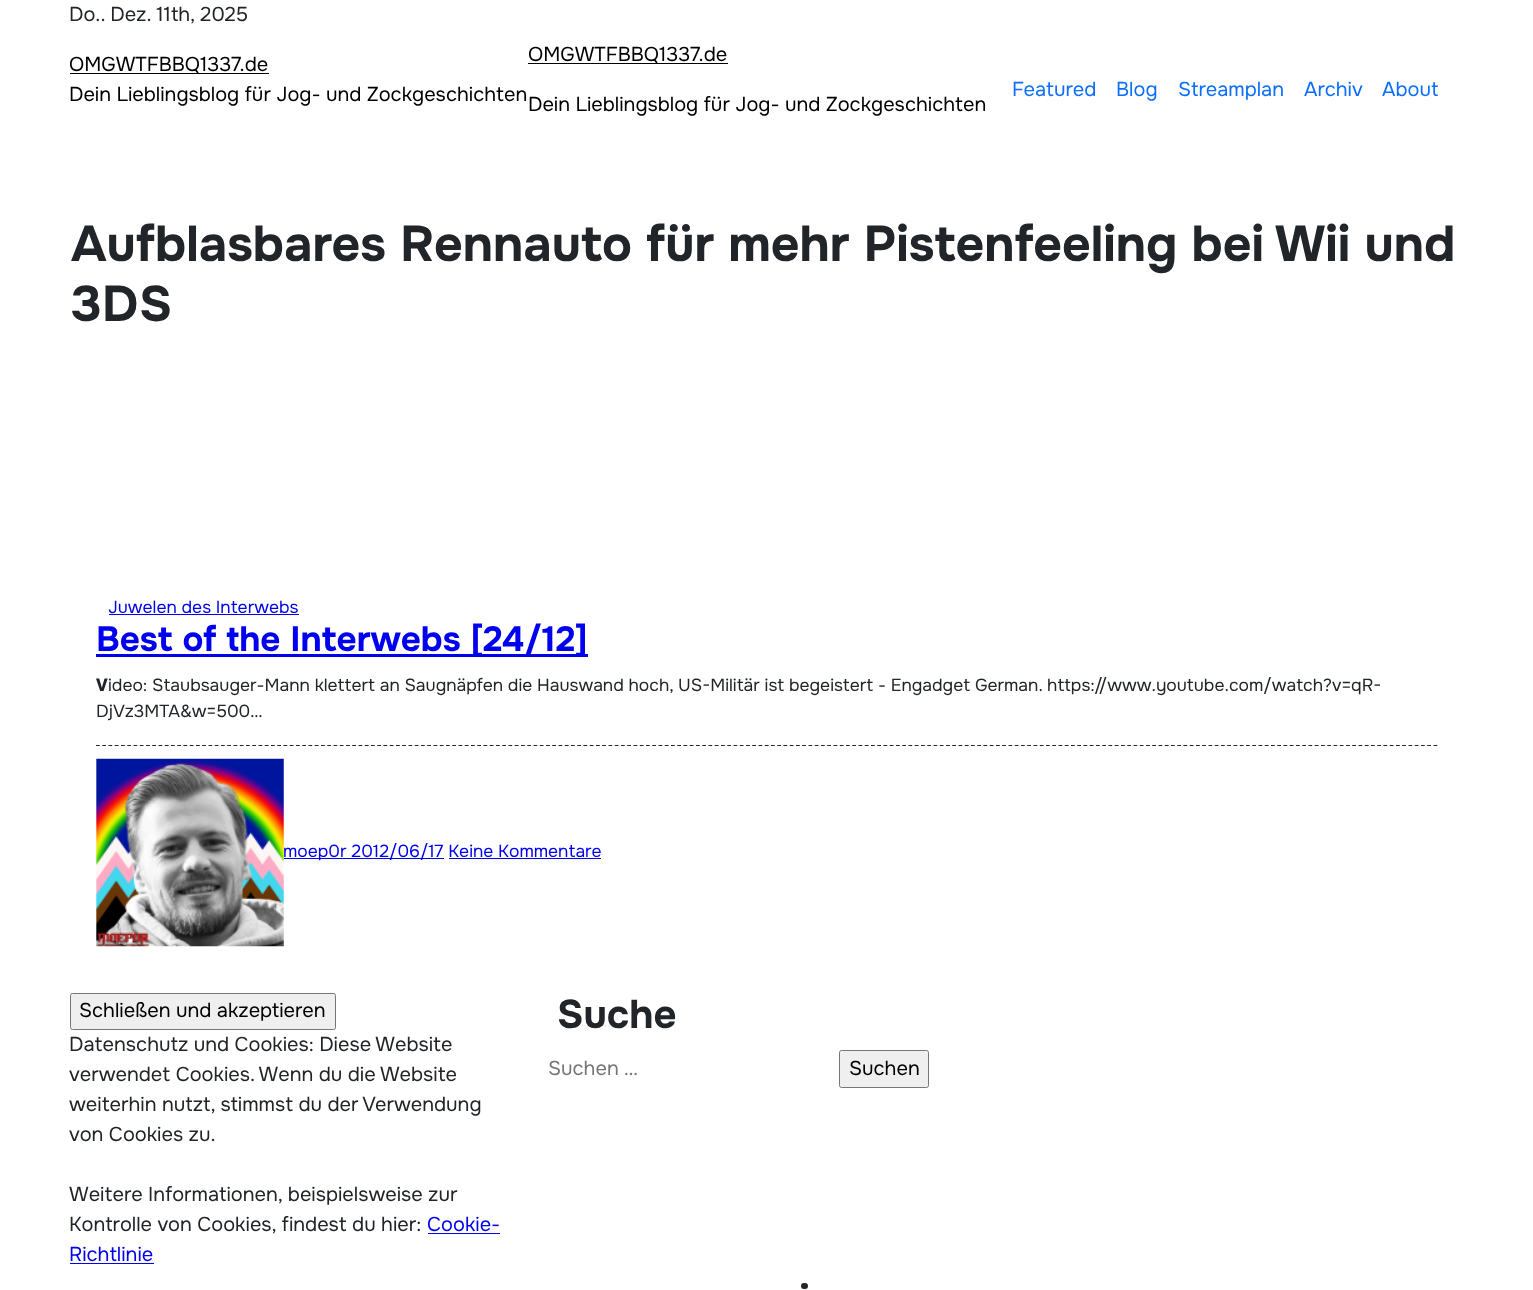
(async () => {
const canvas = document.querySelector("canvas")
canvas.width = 1533
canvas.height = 1290
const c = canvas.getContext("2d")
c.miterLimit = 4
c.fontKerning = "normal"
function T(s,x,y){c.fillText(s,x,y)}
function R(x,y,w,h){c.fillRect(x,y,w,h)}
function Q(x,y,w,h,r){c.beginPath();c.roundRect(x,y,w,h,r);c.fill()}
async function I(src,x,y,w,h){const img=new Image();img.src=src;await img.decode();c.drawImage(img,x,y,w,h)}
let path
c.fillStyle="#fff"
R(0,0,1533,1290)
c.font="20px Onest"
c.fillStyle="#212529"
T("Do.. Dez. 11th, 2025",69,21)
c.fillStyle="#000"
R(70,73,199,1)
T("OMGWTFBBQ1337.de",69,71)
T("Dein Lieblingsblog für Jog- und Zockgeschichten",69,101)
R(528,63,200,1)
T("OMGWTFBBQ1337.de",528,61)
T("Dein Lieblingsblog für Jog- und Zockgeschichten",528,111)
c.fillStyle="#0d6efd"
T("Featured",1012,96)
T("Blog",1116,96)
T("Streamplan",1178,96)
T("Archiv",1304,96)
T("About",1382,96)
c.font="bold 50px Onest"
c.fillStyle="#212529"
T("Aufblasbares Rennauto für mehr Pistenfeeling bei Wii und",71,261)
T("3DS",71,321)
c.font="17.5px Onest"
c.fillStyle="#00e"
T("Juwelen des Interwebs",108,613)
R(109,614,190,1)
R(96,654,492,3)
c.font="bold 35px Onest"
T("Best of the Interwebs [24/12]",96,651)
c.font="800 17.5px Noto Sans"
c.fillStyle="#212529"
T("V",96,691)
c.font="17.5px Onest"
T("ideo: Staubsauger-Mann klettert an Saugnäpfen die Hauswand hoch, US-Militär ist begeistert - Engadget German. https://www.youtube.com/watch?v=qR-",108,691)
T("DjVz3MTA&w=500…",96,717)
path = new Path2D("M96 745.5h1343")
c.strokeStyle="#212529"
c.lineWidth=1.2
c.setLineDash([3.75,2.5])
c.stroke(path)
await I("1.png",96,758,188,189)
c.fillStyle="#00e"
R(284,858,160,1)
T("moep0r 2012/06/17 Keine Kommentare",283,857)
R(449,858,152,1)
c.fillStyle="#efefef"
c.beginPath()
c.roundRect(70.5,993.5,265,36,2)
c.fill()
c.strokeStyle="#767676"
c.lineWidth=1
c.setLineDash([])
c.stroke()
c.font="20px Onest"
c.fillStyle="#000"
T("Schließen und akzeptieren",79,1017)
c.fillStyle="#212529"
T("Datenschutz und Cookies: Diese Website",69,1051)
T("verwendet Cookies. Wenn du die Website",69,1081)
T("weiterhin nutzt, stimmst du der Verwendung",69,1111)
T("von Cookies zu.",69,1141)
T("Weitere Informationen, beispielsweise zur",69,1201)
T("Kontrolle von Cookies, findest du hier:",69,1231)
c.fillStyle="#00e"
T("Cookie-",427,1231)
R(428,1233,72,1)
T("Richtlinie",69,1261)
R(70,1263,84,1)
c.font="bold 40px Onest"
c.fillStyle="#212529"
T("Suche",557,1028)
c.font="20px Onest"
c.fillStyle="#757575"
T("Suchen …",548,1075)
c.fillStyle="#efefef"
c.beginPath()
c.roundRect(839.5,1050.5,89,37,2)
c.fill()
c.stroke()
c.fillStyle="#000"
T("Suchen",849,1075)
c.fillStyle="#212529"
Q(801,1283,7,6,3)
})()
